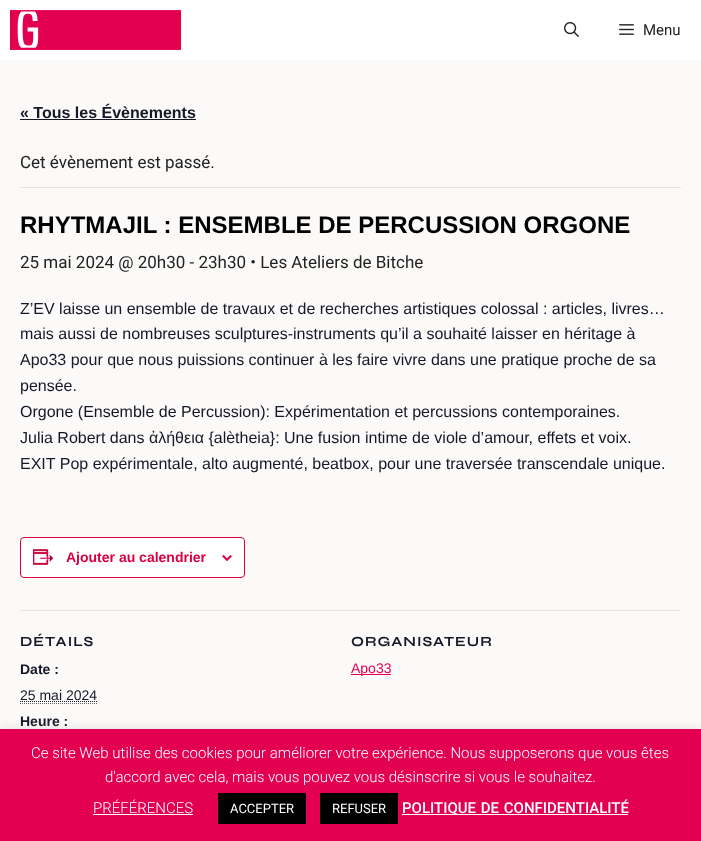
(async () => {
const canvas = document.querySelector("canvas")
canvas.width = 701
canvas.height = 841
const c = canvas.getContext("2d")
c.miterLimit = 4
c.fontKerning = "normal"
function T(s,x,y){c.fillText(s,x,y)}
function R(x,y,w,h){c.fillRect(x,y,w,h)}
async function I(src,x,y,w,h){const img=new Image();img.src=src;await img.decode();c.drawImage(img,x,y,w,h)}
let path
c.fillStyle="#fbfaf9"
R(0,0,701,841)
c.fillStyle="#fff"
R(0,0,701,60)
await I("1.png",10,10,171,40)
await I("2.png",564,22,15,15)
await I("3.png",619,24,15,11)
c.font="15px Roboto"
c.fillStyle="#222"
T("Menu",643,35)
c.font="bold 16px Liberation Sans"
c.fillStyle="#141827"
T("« Tous les Évènements",20,118)
R(20,119,176,1)
c.fillStyle="#e4e4e4"
R(20,187,661,1)
c.font="17px Roboto"
c.fillStyle="#222"
T("Cet évènement est passé.",20,168)
c.font="bold 24px Liberation Sans"
c.fillStyle="#000"
T("RHYTMAJIL : ENSEMBLE DE PERCUSSION ORGONE",20,233)
c.font="17px Roboto"
c.fillStyle="#222"
T("25 mai 2024 @ 20h30 - 23h30 • Les Ateliers de Bitche",20,268)
c.font="16px Liberation Sans"
c.fillStyle="#141827"
T("Z’EV laisse un ensemble de travaux et de recherches artistiques colossal : articles, livres…",20,314)
T("mais aussi de nombreuses sculptures-instruments qu’il a souhaité laisser en héritage à",20,339)
T("Apo33 pour que nous puissions continuer à les faire vivre dans une pratique proche de sa",20,365)
T("pensée.",20,391)
T("Orgone (Ensemble de Percussion): Expérimentation et percussions contemporaines.",20,417)
T("Julia Robert dans ἀλήθεια {alètheia}: Une fusion intime de viole d’amour, effets et voix.",20,443)
T("EXIT Pop expérimentale, alto augmenté, beatbox, pour une traversée transcendale unique.",20,469)
c.fillStyle="#fff"
c.beginPath()
c.roundRect(20.5,537.5,224,40,3.5)
c.fill()
c.strokeStyle="#dc0040"
c.stroke()
await I("4.png",33,549,21,16)
c.font="bold 14px Liberation Sans"
c.fillStyle="#dc0040"
T("Ajouter au calendrier",66,562)
await I("5.png",222,555,10,6)
c.fillStyle="#e4e4e4"
R(20,610,661,1)
c.letterSpacing="1px"
c.font="bold 14px Syne"
c.fillStyle="#141827"
T("DÉTAILS",20,646)
c.letterSpacing="0px"
c.font="bold 14px Liberation Sans"
T("Date :",20,674)
c.font="14px Liberation Sans"
T("25 mai 2024",20,700)
path = new Path2D("M20 703.5h77")
c.strokeStyle="#666"
c.setLineDash([1,1])
c.stroke(path)
path = new Path2D("M20 701.5h77")
c.strokeStyle="#141827"
c.stroke(path)
c.font="bold 14px Liberation Sans"
T("Heure :",20,726)
c.letterSpacing="1px"
c.font="bold 14px Syne"
T("ORGANISATEUR",351,646)
c.fillStyle="#e40050"
R(351,674,40,1)
c.letterSpacing="0px"
c.font="14px Liberation Sans"
T("Apo33",351,673)
c.fillStyle="#acabab4d"
c.filter="blur(5px)"
c.beginPath()
c.rect(0,728,701,112)
c.fill()
c.filter="none"
c.fillStyle="#e40050"
R(0,729,701,112)
c.font="300 15px Roboto"
c.fillStyle="#fff"
T("Ce site Web utilise des cookies pour améliorer votre expérience. Nous supposerons que vous êtes",31,758)
T("d'accord avec cela, mais vous pouvez vous désinscrire si vous le souhaitez.",105,782)
T("PRÉFÉRENCES",93,813)
R(93,814,100,1)
c.fillStyle="#000"
R(218,793,88,31)
c.font="13px Roboto"
c.fillStyle="#fff"
T("ACCEPTER",230,813)
c.fillStyle="#000"
R(320,793,78,31)
c.fillStyle="#fff"
T("REFUSER",332,813)
R(402,814,226,1)
c.wordSpacing="1px"
c.font="500 15px Roboto"
T("POLITIQUE DE CONFIDENTIALITÉ",402,813)
})()
